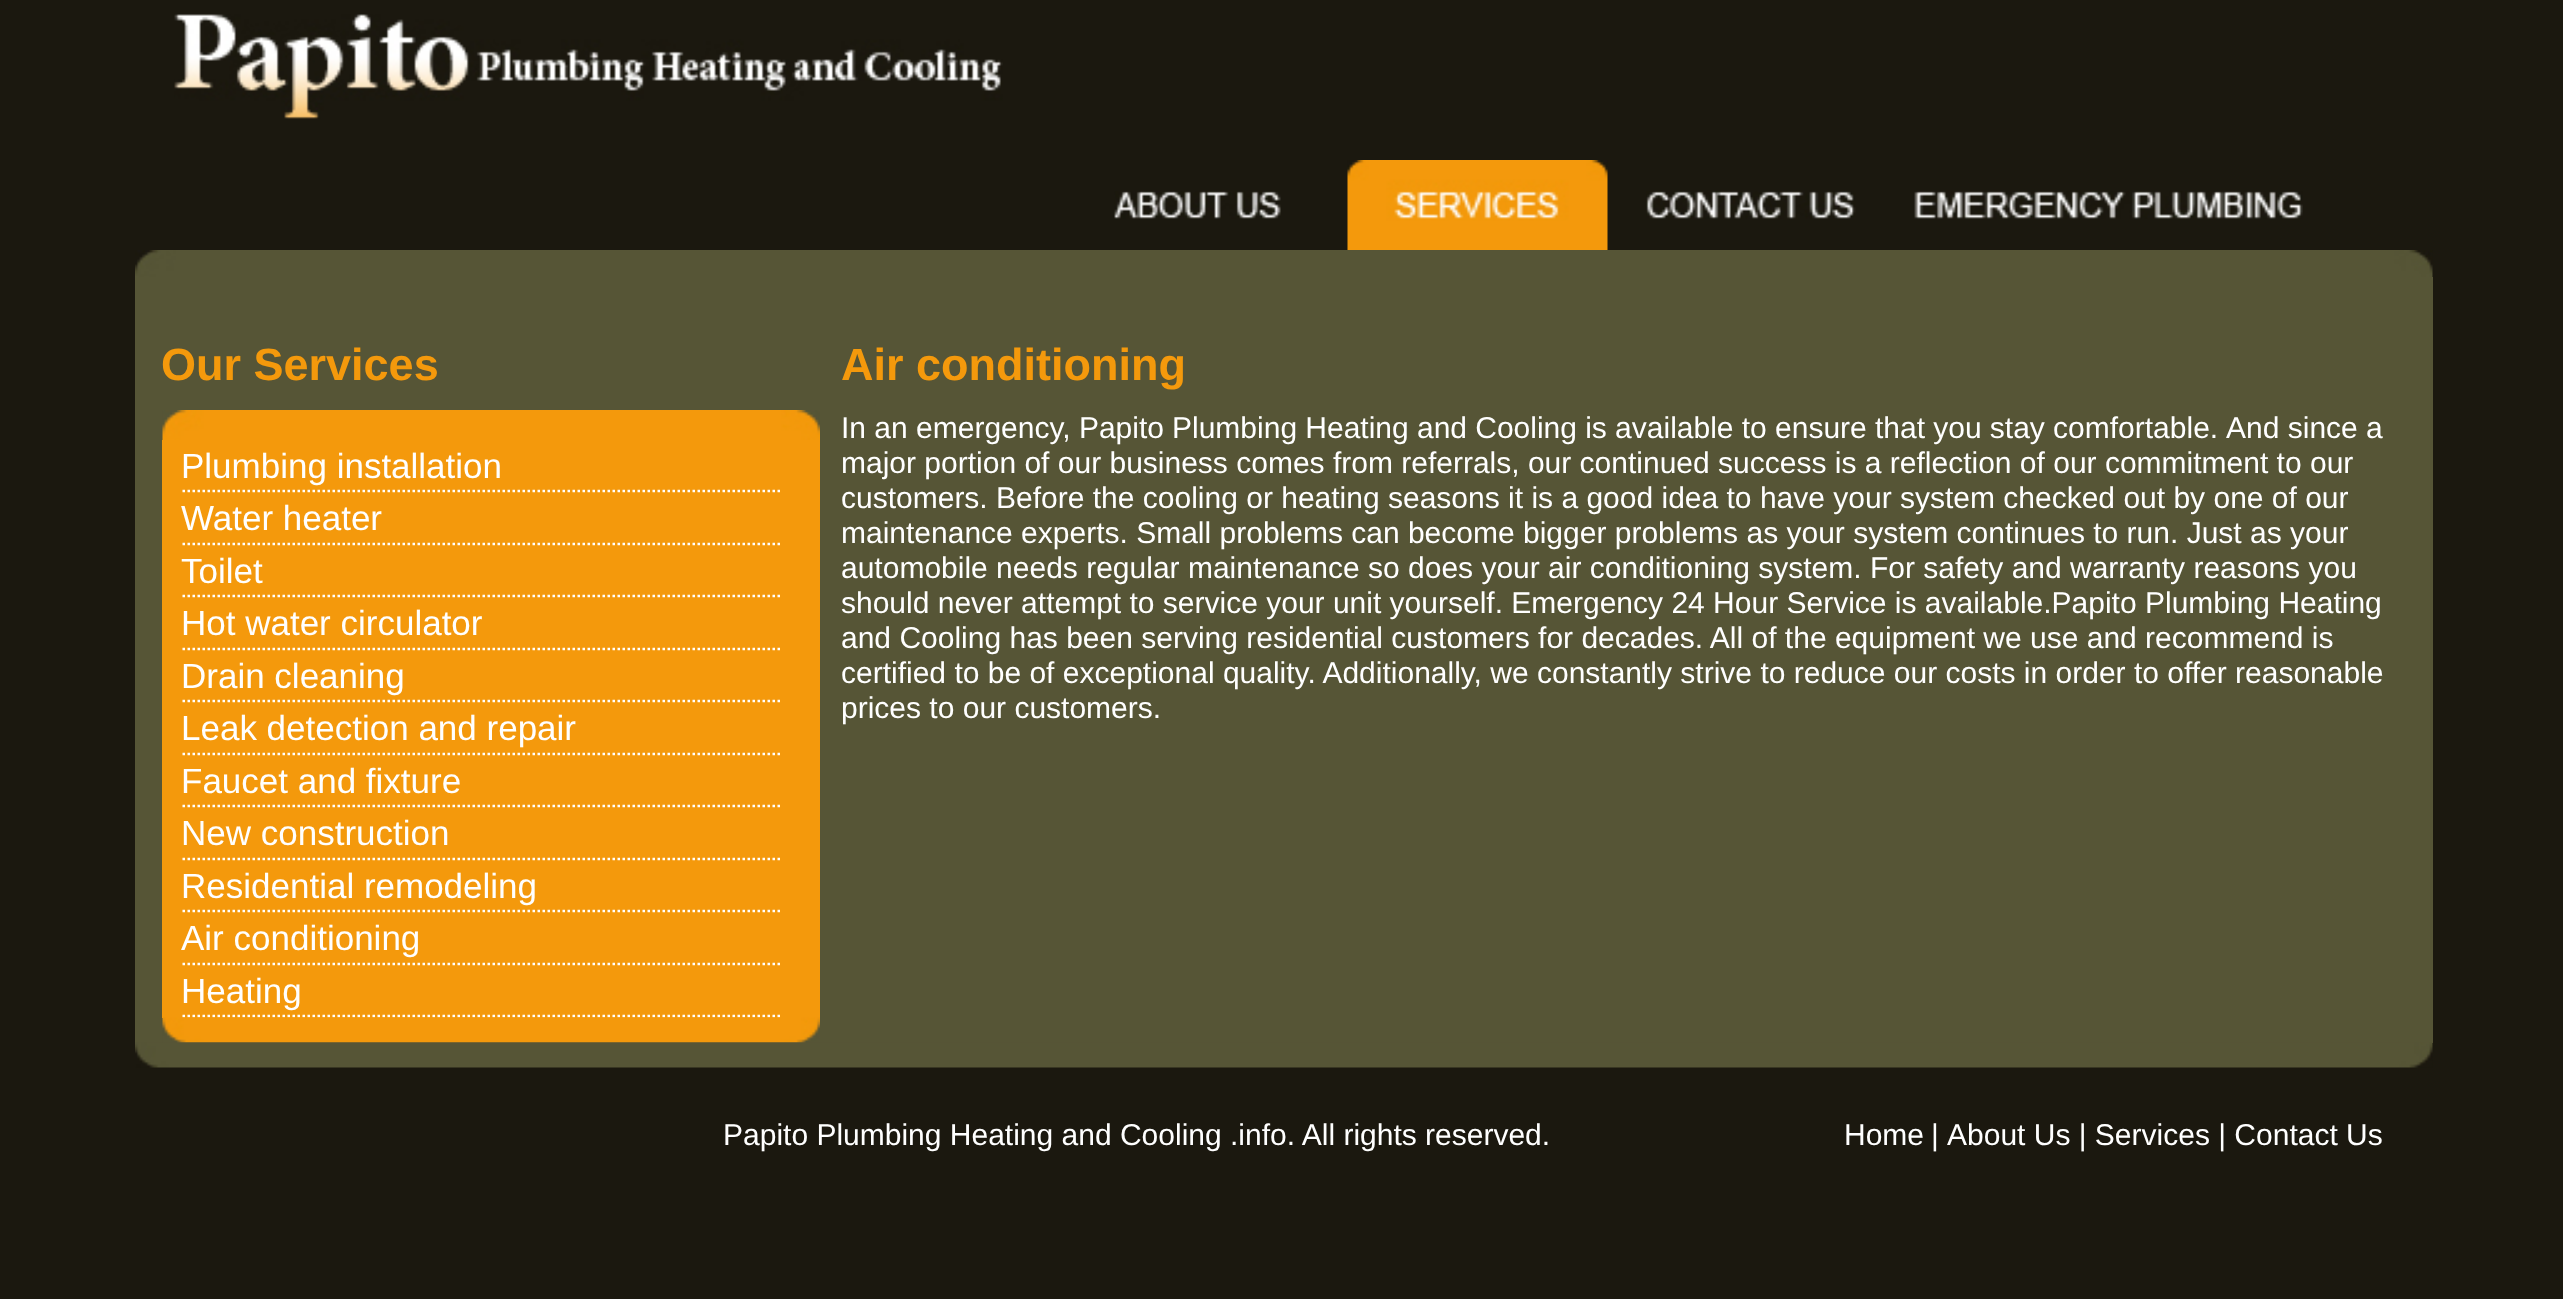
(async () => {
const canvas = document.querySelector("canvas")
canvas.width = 2563
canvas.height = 1299
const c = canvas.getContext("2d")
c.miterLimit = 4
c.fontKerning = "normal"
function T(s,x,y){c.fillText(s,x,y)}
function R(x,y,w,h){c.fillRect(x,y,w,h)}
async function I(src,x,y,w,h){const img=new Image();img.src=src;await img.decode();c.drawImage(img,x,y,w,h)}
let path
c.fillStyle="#1b180f"
R(0,0,2563,1299)
await I("1.png",174,14,829,105)
await I("2.png",1114,191,167,28)
await I("3.png",1347,160,261,90)
await I("4.png",1646,191,210,28)
await I("5.png",1914,191,389,28)
await I("6.png",135,250,2298,27)
c.fillStyle="#565536"
R(135,277,2298,766)
c.font="bold 45px Liberation Sans"
c.fillStyle="#f4990c"
T("Our Services",161,380)
await I("7.png",162,410,658,30)
R(162,440,658,578)
path = new Path2D("M182.5 491h600")
c.strokeStyle="#fff"
c.lineWidth=2.5
c.setLineDash([2.5,2.5])
c.stroke(path)
c.font="35px Liberation Sans"
c.fillStyle="#fff"
T("Plumbing installation",181,478)
path = new Path2D("M182.5 544h600")
c.stroke(path)
T("Water heater",181,530)
path = new Path2D("M182.5 596h600")
c.stroke(path)
T("Toilet",181,583)
path = new Path2D("M182.5 649h600")
c.stroke(path)
T("Hot water circulator",181,635)
path = new Path2D("M182.5 701h600")
c.stroke(path)
T("Drain cleaning",181,688)
path = new Path2D("M182.5 754h600")
c.stroke(path)
T("Leak detection and repair",181,740)
path = new Path2D("M182.5 806h600")
c.stroke(path)
T("Faucet and fixture",181,793)
path = new Path2D("M182.5 859h600")
c.stroke(path)
T("New construction",181,845)
path = new Path2D("M182.5 911h600")
c.stroke(path)
T("Residential remodeling",181,898)
path = new Path2D("M182.5 964h600")
c.stroke(path)
T("Air conditioning",181,950)
path = new Path2D("M182.5 1016h600")
c.stroke(path)
T("Heating",181,1003)
await I("8.png",162,1017,658,26)
c.font="bold 45px Liberation Sans"
c.fillStyle="#f4990c"
T("Air conditioning",841,380)
c.font="30px Liberation Sans"
c.fillStyle="#fff"
T("In an emergency, Papito",841,438)
c.wordSpacing="-0.1px"
T("Plumbing Heating and Cooling is available to ensure that you stay comfortable.",1172,438)
c.wordSpacing="0px"
T("And since a",2226,438)
T("major portion of our business comes from referrals, our continued success is a reflection of our commitment to our",841,473)
T("customers. Before the cooling or heating seasons it is a good idea to have your system checked out by one of our",841,508)
T("maintenance experts. Small problems can become bigger problems as your system continues to run. Just as your",841,543)
T("automobile needs regular maintenance so does your air conditioning system. For safety and warranty reasons you",841,578)
T("should never attempt to service your unit yourself. Emergency 24 Hour Service is available.Papito Plumbing Heating",841,613)
T("and Cooling has been serving residential customers for decades. All of the equipment we use and recommend is",841,648)
T("certified to be of exceptional quality. Additionally, we constantly strive to reduce our costs in order to offer reasonable",841,683)
T("prices to our customers.",841,718)
await I("9.png",135,1042,2298,26)
T("Papito Plumbing Heating and Cooling .info. All rights reserved.",723,1145)
T("Home",1844,1145)
T("|",1931,1145)
T("About Us | Services | Contact Us",1947,1145)
})()
